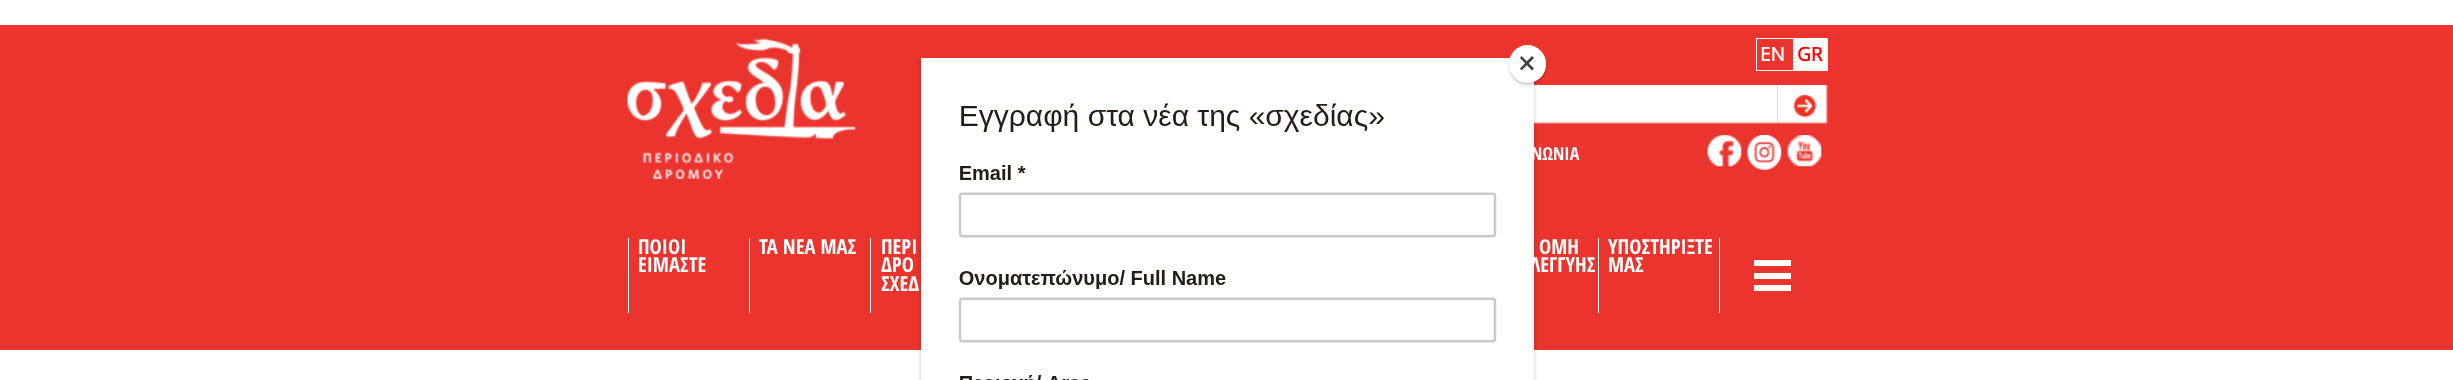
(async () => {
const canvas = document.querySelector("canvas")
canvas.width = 2453
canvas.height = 380
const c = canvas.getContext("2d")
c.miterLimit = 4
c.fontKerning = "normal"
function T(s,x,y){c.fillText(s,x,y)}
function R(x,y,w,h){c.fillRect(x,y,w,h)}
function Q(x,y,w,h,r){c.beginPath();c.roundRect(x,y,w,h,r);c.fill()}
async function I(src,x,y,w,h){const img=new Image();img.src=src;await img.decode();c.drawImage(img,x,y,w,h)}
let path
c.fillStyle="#fff"
R(0,0,2453,380)
c.fillStyle="#eb342e"
R(0,25,2453,325)
await I("3.png",1534,85,244,39)
c.fillStyle="#00000033"
c.filter="blur(2.5px)"
c.beginPath()
c.rect(921,60,613,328)
c.fill()
c.filter="none"
c.font="bold 18px Open Sans Condensed"
c.fillStyle="#fff"
T("ΝΩΝΙΑ",1531,160)
c.font="bold 20.5px Open Sans Condensed"
T("ΛΕΓΓΥΗΣ",1530,272)
await I("1.png",921,58,613,322)
c.fillStyle="#00000033"
c.filter="blur(1px)"
c.beginPath()
c.roundRect(1509,48,37,37,18.5)
c.fill()
c.filter="none"
c.fillStyle="#fff"
Q(1509,45,37,38,18.5)
c.fillStyle="#414141"
path = new Path2D("M1532 56l2 2l-12.5 12.5l-1.5-2z")
c.fill(path)
path = new Path2D("M1520 58l1.5-2l12.5 12.5l-2 2z")
c.fill(path)
await I("2.png",627,38,229,141)
c.font="bold 19px Open Sans"
c.fillStyle="#fff"
T("EN",1760,61)
R(1756,38,38,1)
R(1756,70,29,1)
R(1756,38,1,33)
R(1793,38,35,33)
R(1785,70,9,1)
c.fillStyle="#f00"
T("GR",1797,61)
await I("4.png",1777,85,51,39)
await I("5.png",1707,135,35,32)
await I("6.png",1747,135,35,35)
await I("7.png",1787,135,35,32)
c.fillStyle="#fff"
R(749,238,1,75)
R(628,238,1,75)
c.font="bold 20.5px Open Sans Condensed"
T("ΠΟΙΟΙ",638,254)
T("ΕΙΜΑΣΤΕ",638,272)
R(870,238,1,75)
T("ΤΑ ΝΕΑ ΜΑΣ",759,254)
T("ΠΕΡΙ",881,254)
T("ΔΡΟ",881,272)
T("ΣΧΕΔ",881,291)
R(1598,238,1,75)
T("ΟΜΗ",1539,254)
R(1719,238,1,75)
T("ΥΠΟΣΤΗΡΙΞΤΕ",1608,254)
T("ΜΑΣ",1608,272)
R(1754,260,37,6)
R(1754,273,37,6)
R(1754,285,37,6)
})()
